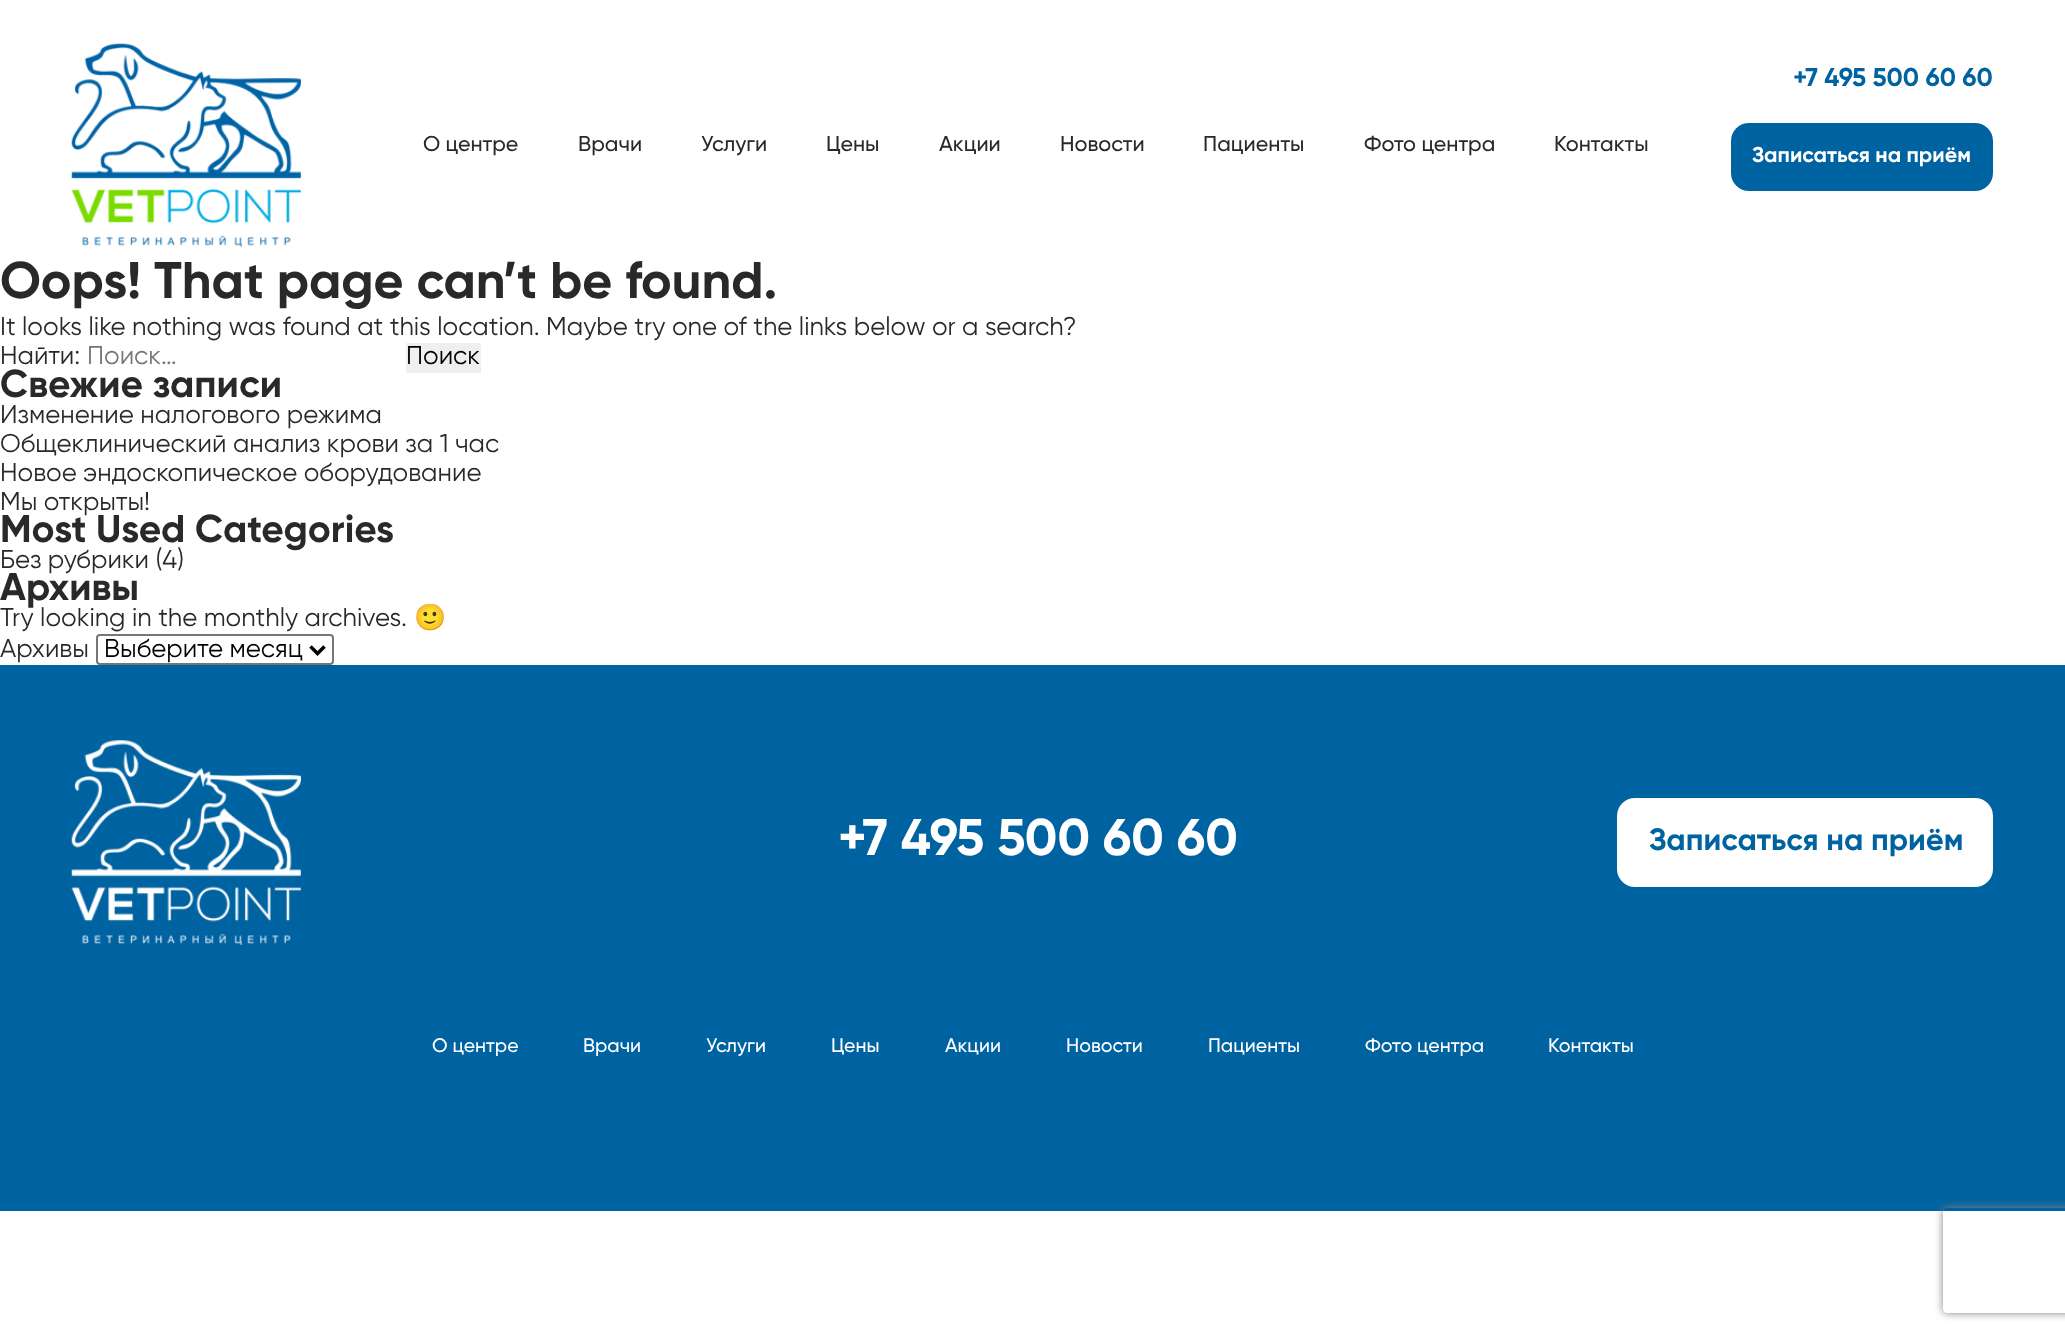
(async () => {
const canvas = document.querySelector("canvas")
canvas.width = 2065
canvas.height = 1336
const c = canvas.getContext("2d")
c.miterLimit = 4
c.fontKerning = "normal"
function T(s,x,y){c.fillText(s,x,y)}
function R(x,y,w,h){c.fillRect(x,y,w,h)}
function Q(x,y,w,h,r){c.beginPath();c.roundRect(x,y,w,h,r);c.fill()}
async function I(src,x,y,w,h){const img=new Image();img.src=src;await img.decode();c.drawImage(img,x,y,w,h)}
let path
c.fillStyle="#fff"
R(0,0,2065,1336)
await I("1.png",71,43,230,204)
c.font="500 21.5px Gilroy"
c.fillStyle="#292929"
T("О центре",423,151)
T("Врачи",578,151)
T("Услуги",701,151)
T("Цены",826,151)
T("Акции",939,151)
T("Новости",1060,151)
T("Пациенты",1203,151)
T("Фото центра",1364,151)
T("Контакты",1554,151)
c.font="bold 25.8px Gilroy"
c.fillStyle="#0063a1"
T("+7 495 500 60 60",1793,86)
Q(1731,123,262,68,18)
c.font="bold 21.5px Gilroy"
c.fillStyle="#fff"
T("Записаться на приём",1752,162)
c.font="bold 51.6px Gilroy"
c.fillStyle="#292929"
T("Oops! That page can’t be found.",0,298)
c.font="25.8px Gilroy"
T("It looks like nothing was found at this location. Maybe try one of the links below or a search?",0,335)
T("Найти:",0,364)
c.fillStyle="#757575"
T("Поиск…",87,364)
c.fillStyle="#efefef"
R(406,343,75,30)
c.fillStyle="#000"
T("Поиск",406,364)
c.font="bold 38.75px Gilroy"
c.fillStyle="#292929"
T("Свежие записи",0,397)
c.font="25.8px Gilroy"
T("Изменение налогового режима",0,423)
T("Общеклинический анализ крови за 1 час",0,452)
T("Новое эндоскопическое оборудование",0,481)
T("Мы открыты!",0,510)
c.font="bold 38.75px Gilroy"
T("Most Used Categories",0,542)
c.font="25.8px Gilroy"
T("Без рубрики (4)",0,568)
c.font="bold 38.75px Gilroy"
T("Архивы",0,600)
c.font="25.8px Gilroy"
T("Try looking in the monthly archives.",0,626)
c.font="25.8px Noto Color Emoji"
T("🙂",414,626)
c.font="25.8px Gilroy"
T("Архивы",0,657)
c.beginPath()
c.roundRect(97,635,236,29,3)
c.strokeStyle="#767676"
c.lineWidth=2
c.stroke()
path = new Path2D("M310.5 646.5l7 7l7-7")
c.strokeStyle="#000"
c.lineWidth=3.5
c.stroke(path)
c.fillStyle="#000"
T("Выберите месяц",104,657)
c.fillStyle="#0063a1"
R(0,665,2065,546)
await I("2.png",71,740,230,205)
c.font="bold 51.6px Gilroy"
c.fillStyle="#fff"
T("+7 495 500 60 60",838,855)
Q(1617,798,376,89,18)
c.font="bold 30.9px Gilroy"
c.fillStyle="#0063a1"
T("Записаться на приём",1649,850)
c.font="500 19.5px Gilroy"
c.fillStyle="#fff"
T("О центре",432,1052)
T("Врачи",583,1052)
T("Услуги",706,1052)
T("Цены",831,1052)
T("Акции",945,1052)
T("Новости",1066,1052)
T("Пациенты",1208,1052)
T("Фото центра",1365,1052)
T("Контакты",1548,1052)
c.save()
path = new Path2D("M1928 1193h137v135h-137zm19 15h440c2 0 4 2 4 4v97c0 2-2 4-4 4h-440c-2 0-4-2-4-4v-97c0-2 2-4 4-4z")
c.clip(path,"evenodd")
c.fillStyle="#808080"
c.filter="blur(4.5px)"
c.beginPath()
c.roundRect(1943,1208,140,105,4)
c.fill()
c.filter="none"
c.restore()
})()
